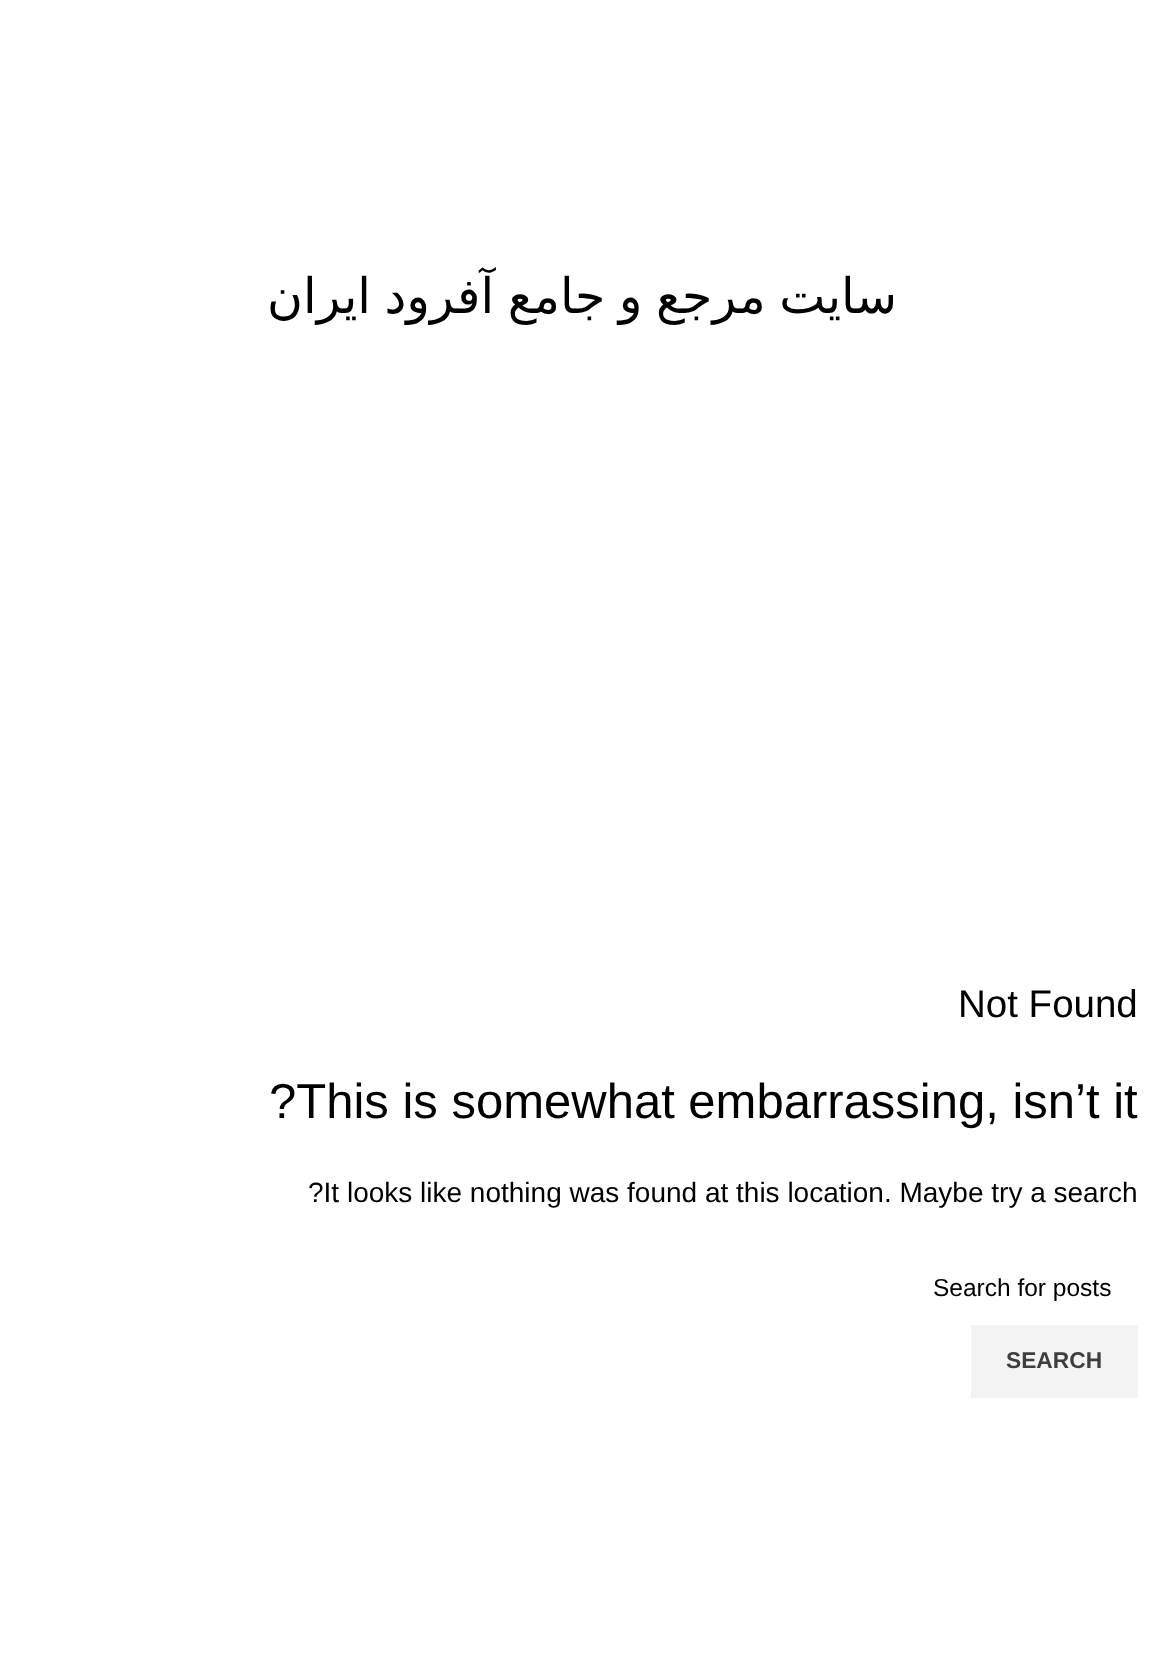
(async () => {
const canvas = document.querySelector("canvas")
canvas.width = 1163
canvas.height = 1660
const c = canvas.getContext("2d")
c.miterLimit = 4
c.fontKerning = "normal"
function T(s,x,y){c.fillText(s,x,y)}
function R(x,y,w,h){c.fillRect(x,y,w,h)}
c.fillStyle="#fff"
R(0,0,1163,1660)
c.wordSpacing="-2px"
c.direction="rtl"
c.font="49px DejaVu Sans"
c.fillStyle="#000"
T("سایت مرجع و جامع آفرود ایران",897,313)
c.wordSpacing="0px"
c.direction="ltr"
c.font="38.5px Liberation Sans"
T("Not Found",958,1017)
c.font="49px Liberation Sans"
T("?This is somewhat embarrassing, isn’t it",269,1118)
c.font="28px Liberation Sans"
T("?It looks like nothing was found at this location. Maybe try a search",308,1202)
c.font="24.5px Liberation Sans"
T("Search for posts",933,1296)
c.fillStyle="#f3f3f3"
R(971,1325,167,73)
c.font="bold 22.75px Liberation Sans"
c.fillStyle="#3e3e3e"
T("SEARCH",1006,1368)
})()
